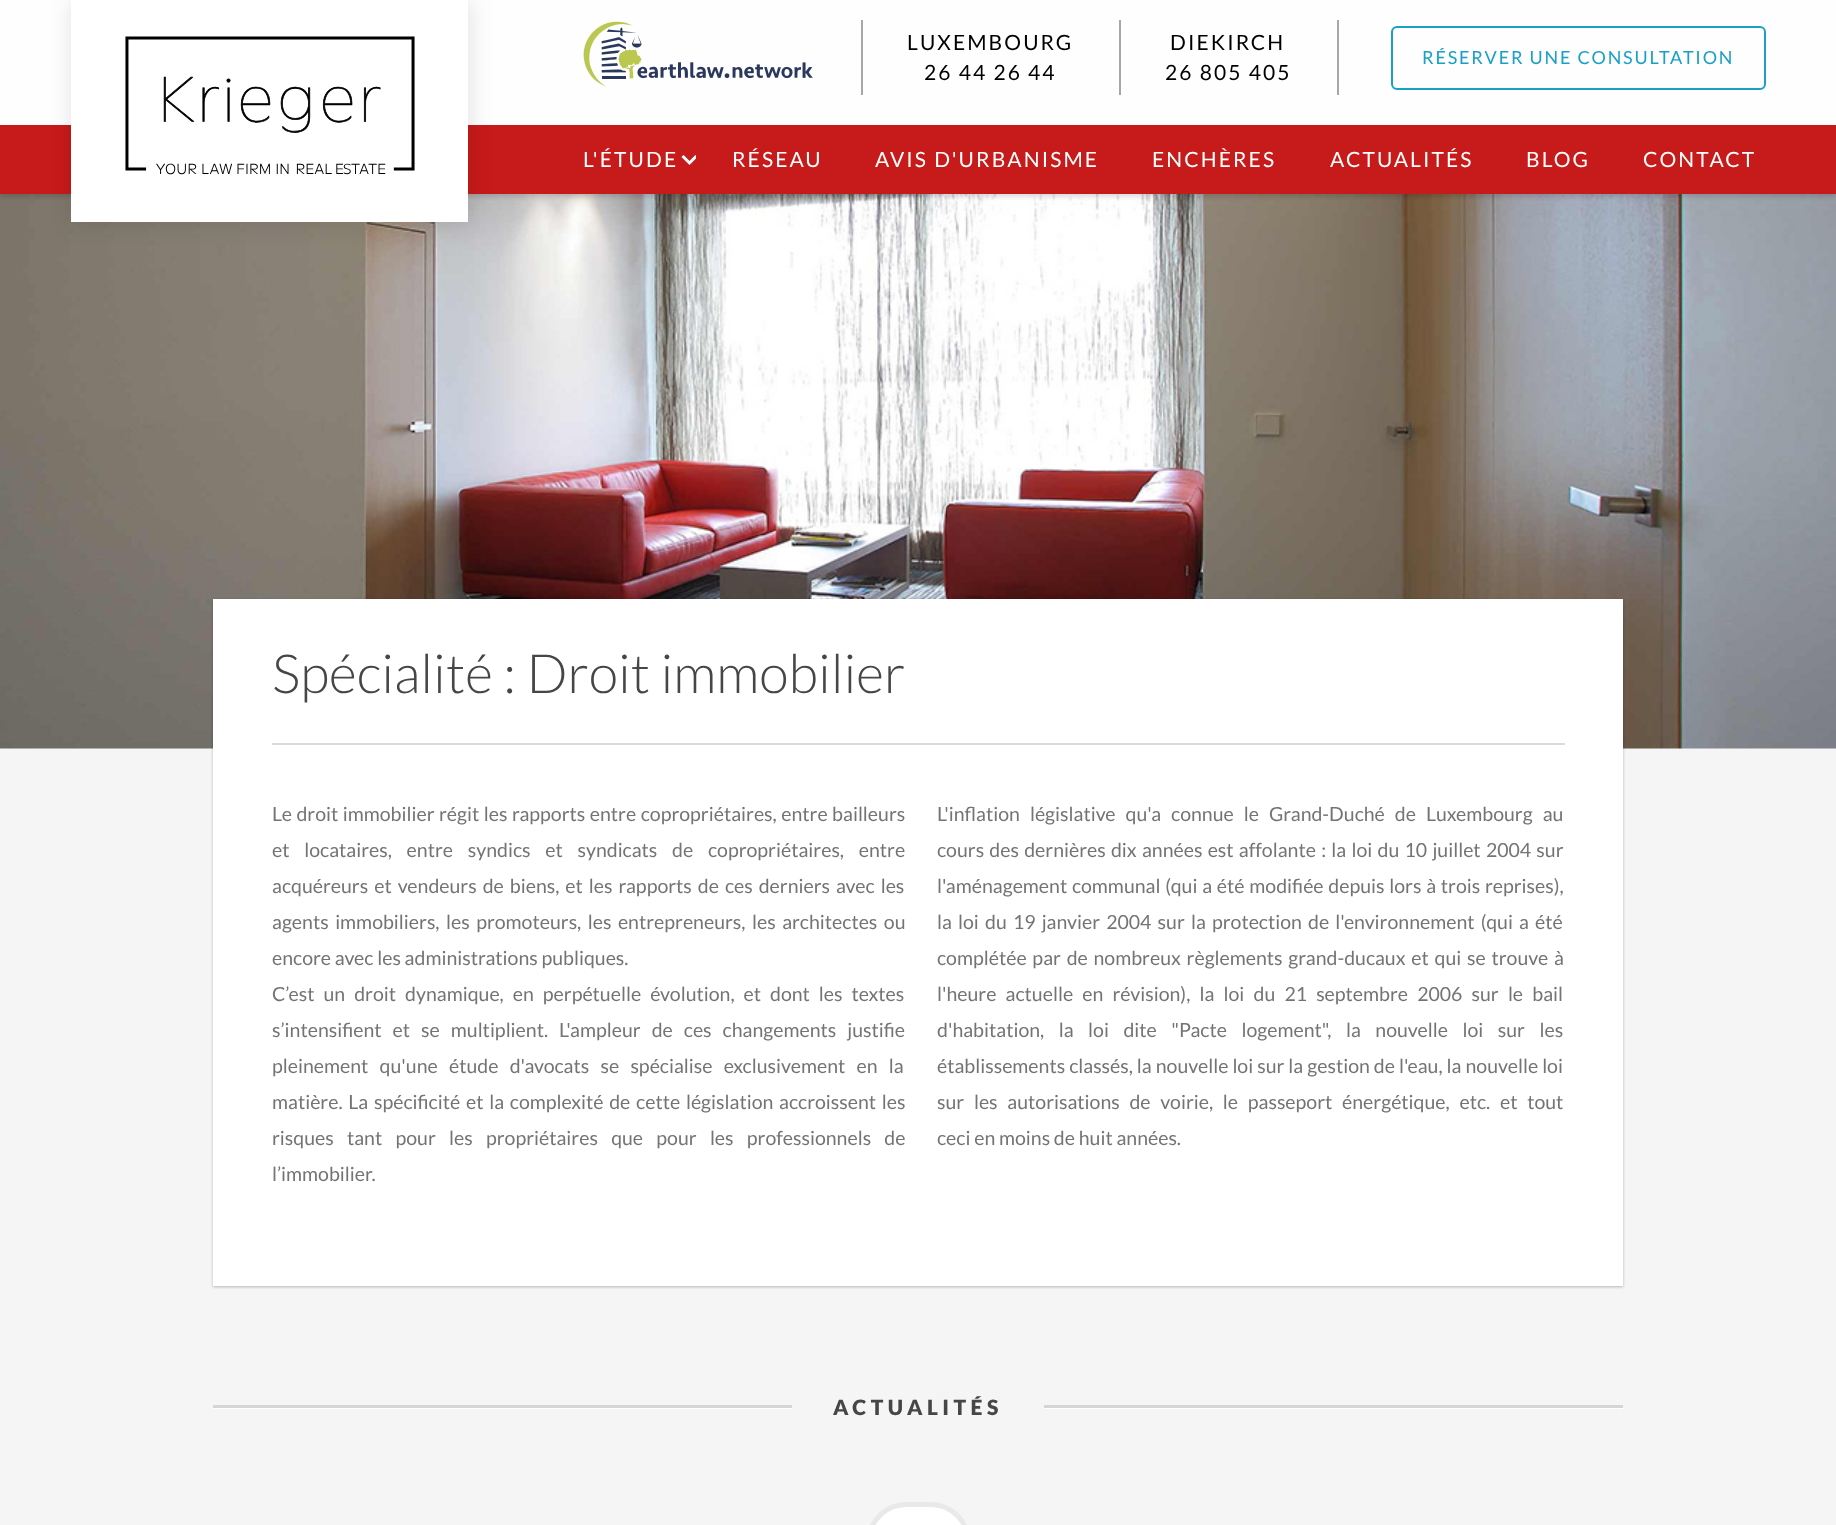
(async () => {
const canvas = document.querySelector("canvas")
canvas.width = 1836
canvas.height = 1525
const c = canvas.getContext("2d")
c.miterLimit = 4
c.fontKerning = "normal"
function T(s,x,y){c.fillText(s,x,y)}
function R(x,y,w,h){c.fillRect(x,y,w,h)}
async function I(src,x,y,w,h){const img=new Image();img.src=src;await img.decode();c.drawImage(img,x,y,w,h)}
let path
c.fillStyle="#f5f5f5"
R(0,0,1836,1525)
c.fillStyle="#ffffffdb"
R(0,0,1836,125)
await I("1.png",583,21,230,66)
c.fillStyle="#a7a7a5"
R(861,20,2,75)
c.letterSpacing="2.1px"
c.font="21px Lato"
c.fillStyle="#000"
T("LUXEMBOURG",907,50)
T("26 44 26 44",924,80)
c.fillStyle="#a7a7a5"
R(1337,20,2,75)
R(1119,20,2,75)
c.fillStyle="#000"
T("DIEKIRCH",1170,50)
T("26 805 405",1165,80)
c.beginPath()
c.roundRect(1392,27,373,62,5)
c.strokeStyle="#1aa0c7"
c.lineWidth=2
c.stroke()
c.letterSpacing="1.8px"
c.font="18px Lato"
c.fillStyle="#1aa0c7"
T("RÉSERVER UNE CONSULTATION",1422,64)
await I("3.png",0,194,1836,555)
c.fillStyle="#00000021"
c.filter="blur(2px)"
c.beginPath()
c.rect(0,128,1836,69)
c.fill()
c.filter="none"
c.fillStyle="#c71a1a"
R(0,125,1836,69)
c.fillStyle="#0000001a"
c.filter="blur(10.5px)"
c.beginPath()
c.rect(71,0,400,225)
c.fill()
c.filter="none"
c.fillStyle="#fff"
R(71,0,397,222)
await I("2.png",125,36,290,139)
c.letterSpacing="2.1px"
c.font="21px Lato"
T("L'ÉTUDE",583,167)
c.save()
c.beginPath()
c.rect(681,155,15,12)
c.clip()
path = new Path2D("M696.5 156l-7 7l-7-7")
c.strokeStyle="#fff"
c.lineWidth=3
c.stroke(path)
c.restore()
T("RÉSEAU",732,167)
T("AVIS D'URBANISME",875,167)
T("ENCHÈRES",1152,167)
T("ACTUALITÉS",1330,167)
T("BLOG",1526,167)
T("CONTACT",1643,167)
c.fillStyle="#00000042"
c.filter="blur(1.5px)"
c.beginPath()
c.rect(213,600,1410,687)
c.fill()
c.filter="none"
c.fillStyle="#fff"
R(213,599,1410,687)
c.fillStyle="#dbdbdb"
R(272,743,1293,2)
c.letterSpacing="0px"
c.font="300 54px Lato"
c.fillStyle="#464646"
T("Spécialité : Droit immobilier",272,693)
c.wordSpacing="0.75px"
c.font="19.5px Lato"
c.fillStyle="#747474"
T("Le droit immobilier régit les rapports entre copropriétaires, entre bailleurs",272,821)
c.wordSpacing="11px"
T("et locataires, entre syndics et syndicats de copropriétaires, entre",272,857)
c.wordSpacing="2.25px"
T("acquéreurs et vendeurs de biens, et les rapports de ces derniers avec les",272,893)
c.wordSpacing="2.75px"
T("agents immobiliers, les promoteurs, les entrepreneurs, les architectes ou",272,929)
c.wordSpacing="0px"
T("encore avec les administrations publiques.",272,965)
c.wordSpacing="5.25px"
T("C’est un droit dynamique, en perpétuelle évolution, et dont les textes",272,1001)
c.wordSpacing="7.25px"
T("s’intensifient et se multiplient. L'ampleur de ces changements justifie",272,1037)
c.wordSpacing="7.5px"
T("pleinement qu'une étude d'avocats se spécialise exclusivement en la",272,1073)
c.wordSpacing="2px"
T("matière. La spécificité et la complexité de cette législation accroissent les",272,1109)
c.wordSpacing="9.5px"
T("risques tant pour les propriétaires que pour les professionnels de",272,1145)
c.wordSpacing="0px"
T("l’immobilier.",272,1181)
c.wordSpacing="6.25px"
T("L'inflation législative qu'a connue le Grand-Duché de Luxembourg au",937,821)
c.wordSpacing="1.5px"
T("cours des dernières dix années est affolante : la loi du 10 juillet 2004 sur",937,857)
c.wordSpacing="1px"
T("l'aménagement communal (qui a été modifiée depuis lors à trois reprises),",937,893)
c.wordSpacing="2.4px"
T("la loi du 19 janvier 2004 sur la protection de l'environnement (qui a été",937,929)
c.wordSpacing="2px"
T("complétée par de nombreux règlements grand-ducaux et qui se trouve à",937,965)
c.wordSpacing="5.4px"
T("l'heure actuelle en révision), la loi du 21 septembre 2006 sur le bail",937,1001)
c.wordSpacing="10.75px"
T("d'habitation, la loi dite \"Pacte logement\", la nouvelle loi sur les",937,1037)
c.wordSpacing="0.25px"
T("établissements classés, la nouvelle loi sur la gestion de l'eau, la nouvelle loi",937,1073)
c.wordSpacing="6px"
T("sur les autorisations de voirie, le passeport énergétique, etc. et tout",937,1109)
c.wordSpacing="0px"
T("ceci en moins de huit années.",937,1145)
c.fillStyle="#fff"
R(213,1408,579,1)
c.fillStyle="#d5d5d5"
R(213,1405,579,3)
c.letterSpacing="4.5px"
c.font="900 21px Lato"
c.fillStyle="#464646"
T("ACTUALITÉS",833,1415)
c.fillStyle="#fff"
R(1044,1408,579,1)
c.fillStyle="#d5d5d5"
R(1044,1405,579,3)
c.fillStyle="#fff"
c.beginPath()
c.roundRect(868.5,1504.5,100,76,50)
c.fill()
c.strokeStyle="#e9e9e9"
c.lineWidth=5
c.stroke()
})()
